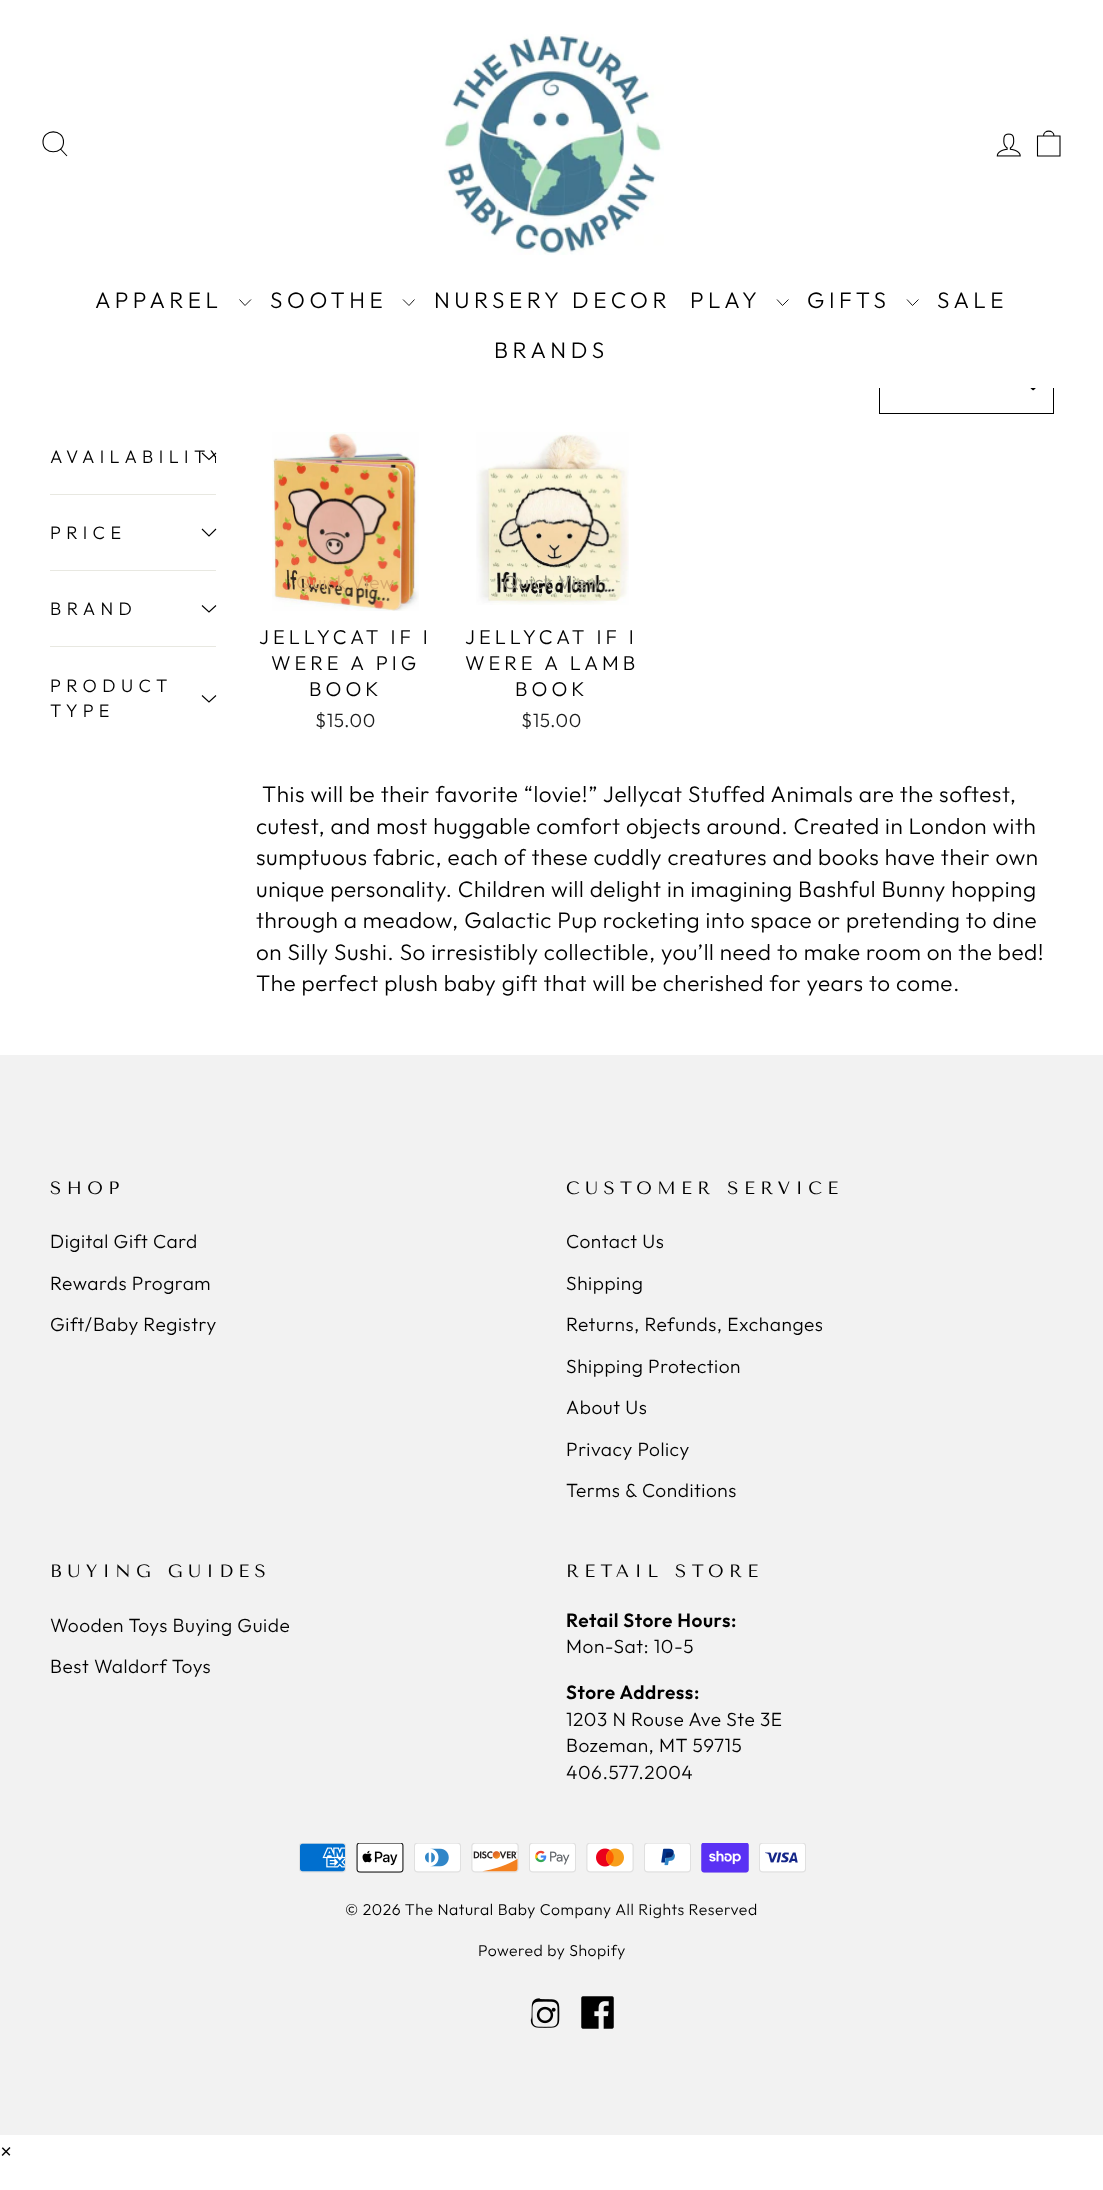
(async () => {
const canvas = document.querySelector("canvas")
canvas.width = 1103
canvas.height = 2190
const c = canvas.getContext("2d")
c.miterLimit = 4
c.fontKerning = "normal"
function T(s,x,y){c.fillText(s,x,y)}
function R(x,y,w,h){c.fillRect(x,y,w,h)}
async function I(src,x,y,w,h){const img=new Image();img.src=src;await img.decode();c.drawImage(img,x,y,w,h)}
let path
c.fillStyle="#fff"
R(0,0,1103,2190)
await I("3.png",1030,388,6,3)
c.strokeStyle="#000"
c.strokeRect(879.5,359.5,174,54)
c.fillStyle="#00000033"
c.filter="blur(0.5px)"
c.beginPath()
c.rect(0,0,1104,388)
c.fill()
c.filter="none"
c.fillStyle="#fff"
R(0,0,1103,388)
path = new Path2D("M63.5 142c0 13-20.5 13-20.5 0c0-13.5 20.5-13.5 20.5 0zm3.5 14l-6.5-7")
c.lineWidth=1.1
c.stroke(path)
await I("1.png",444,34,220,221)
await I("2.png",996,133,25,24)
path = new Path2D("M1037.5 136h22.5v20h-22.5zm6 0c0-6.5 10.5-6.5 10.5 0")
c.stroke(path)
c.letterSpacing="4.5px"
c.font="300 22.5px Outfit"
c.fillStyle="#000"
T("APPAREL",95,308)
path = new Path2D("M239.5 299.5l5.5 6l6-6")
c.lineWidth=0.9
c.stroke(path)
T("SOOTHE",270,308)
path = new Path2D("M403 299.5l6 6l5.5-6")
c.stroke(path)
T("NURSERY DECOR",434,308)
T("PLAY",690,308)
path = new Path2D("M777 299.5l5.5 6l6-6")
c.stroke(path)
T("GIFTS",807,308)
path = new Path2D("M907 299.5l5.5 6l6-6")
c.stroke(path)
T("SALE",937,308)
T("BRANDS",494,358)
c.save()
c.beginPath()
c.rect(50,425,166,63)
c.clip()
c.letterSpacing="5.4px"
c.font="300 18px Outfit"
T("AVAILABILITY",50,463)
c.restore()
path = new Path2D("M202 453l7 6.5l7-6.5")
c.lineWidth=1.1
c.stroke(path)
c.fillStyle="#e8e8e1"
R(50,494,166,1)
c.letterSpacing="5.4px"
c.font="300 18px Outfit"
c.fillStyle="#000"
T("PRICE",50,539)
path = new Path2D("M202 529l7 7l7-7")
c.stroke(path)
c.fillStyle="#e8e8e1"
R(50,570,166,1)
c.fillStyle="#000"
T("BRAND",50,615)
path = new Path2D("M202 605.5l7 6.5l7-6.5")
c.stroke(path)
c.fillStyle="#e8e8e1"
R(50,646,166,1)
c.fillStyle="#000"
T("PRODUCT",50,692)
path = new Path2D("M202 695.5l7 6.5l7-6.5")
c.stroke(path)
T("TYPE",50,717)
await I("4.png",272,432,147,179)
c.letterSpacing="0.5px"
c.font="300 19.1px Outfit"
c.fillStyle="#d9ab6f"
T("Quick View",296,589)
c.letterSpacing="4px"
c.font="300 20px Outfit"
c.fillStyle="#000"
T("JELLYCAT IF I",259,644)
T("WERE A PIG",271,670)
T("BOOK",309,696)
c.letterSpacing="0.55px"
c.font="300 19.1px Outfit"
c.fillStyle="#1c1d1d"
T("$15.00",315,727)
await I("5.png",476,432,153,173)
c.letterSpacing="0.5px"
c.fillStyle="#929082"
T("Quick View",503,589)
c.letterSpacing="4px"
c.font="300 20px Outfit"
c.fillStyle="#000"
T("JELLYCAT IF I",465,644)
T("WERE A LAMB",465,670)
T("BOOK",515,696)
c.letterSpacing="0.55px"
c.font="300 19.1px Outfit"
c.fillStyle="#1c1d1d"
T("$15.00",521,727)
c.font="300 22.5px Outfit"
c.fillStyle="#000"
T("This will be their favorite “lovie!” Jellycat Stuffed Animals are the softest,",262,802)
T("cutest, and most huggable comfort objects around. Created in London with",256,834)
T("sumptuous fabric, each of these cuddly creatures and books have their own",256,865)
T("unique personality. Children will delight in imagining Bashful Bunny hopping",256,897)
T("through a meadow, Galactic Pup rocketing into space or pretending to dine",256,928)
T("on Silly Sushi. So irresistibly collectible, you’ll need to make room on the bed!",256,960)
T("The perfect plush baby gift that will be cherished for years to come.",256,991)
c.fillStyle="#f2f2f2"
R(0,1055,1103,1080)
c.letterSpacing="5.4px"
c.font="18px Tenor Sans"
c.fillStyle="#000"
T("SHOP",50,1194)
c.letterSpacing="0.55px"
c.font="300 19.1px Outfit"
T("Digital Gift Card",50,1248)
T("Rewards Program",50,1290)
T("Gift/Baby Registry",50,1331)
c.letterSpacing="5.4px"
c.font="18px Tenor Sans"
T("CUSTOMER SERVICE",566,1194)
c.letterSpacing="0.55px"
c.font="300 19.1px Outfit"
T("Contact Us",566,1248)
T("Shipping",566,1290)
T("Returns, Refunds, Exchanges",566,1331)
T("Shipping Protection",566,1373)
T("About Us",566,1414)
T("Privacy Policy",566,1456)
T("Terms & Conditions",566,1497)
c.letterSpacing="5.4px"
c.font="18px Tenor Sans"
T("BUYING GUIDES",50,1577)
c.letterSpacing="0.55px"
c.font="300 19.1px Outfit"
T("Wooden Toys Buying Guide",50,1632)
T("Best Waldorf Toys",50,1673)
c.letterSpacing="5.4px"
c.font="18px Tenor Sans"
T("RETAIL STORE",566,1577)
c.letterSpacing="0.55px"
c.font="600 19.1px Outfit"
T("Retail Store Hours:",566,1627)
c.font="300 19.1px Outfit"
T("Mon-Sat: 10-5",566,1653)
c.font="600 19.1px Outfit"
T("Store Address:",566,1699)
c.font="300 19.1px Outfit"
T("1203 N Rouse Ave Ste 3E",566,1726)
T("Bozeman, MT 59715",566,1752)
T("406.577.2004",566,1779)
await I("6.png",299,1843,47,30)
await I("7.png",356,1843,48,30)
await I("8.png",414,1843,47,30)
await I("9.png",471,1843,48,30)
await I("10.png",529,1843,47,30)
await I("11.png",586,1843,48,30)
await I("12.png",644,1843,47,30)
await I("13.png",701,1843,48,30)
await I("14.png",759,1843,47,30)
c.font="300 15.75px Outfit"
T("© 2026 The Natural Baby Company All Rights Reserved",345,1915)
T("Powered by Shopify",478,1956)
await I("15.png",530,1998,30,30)
await I("16.png",581,1996,33,33)
c.font="300 22.5px Outfit"
T("×",0,2159)
})()
